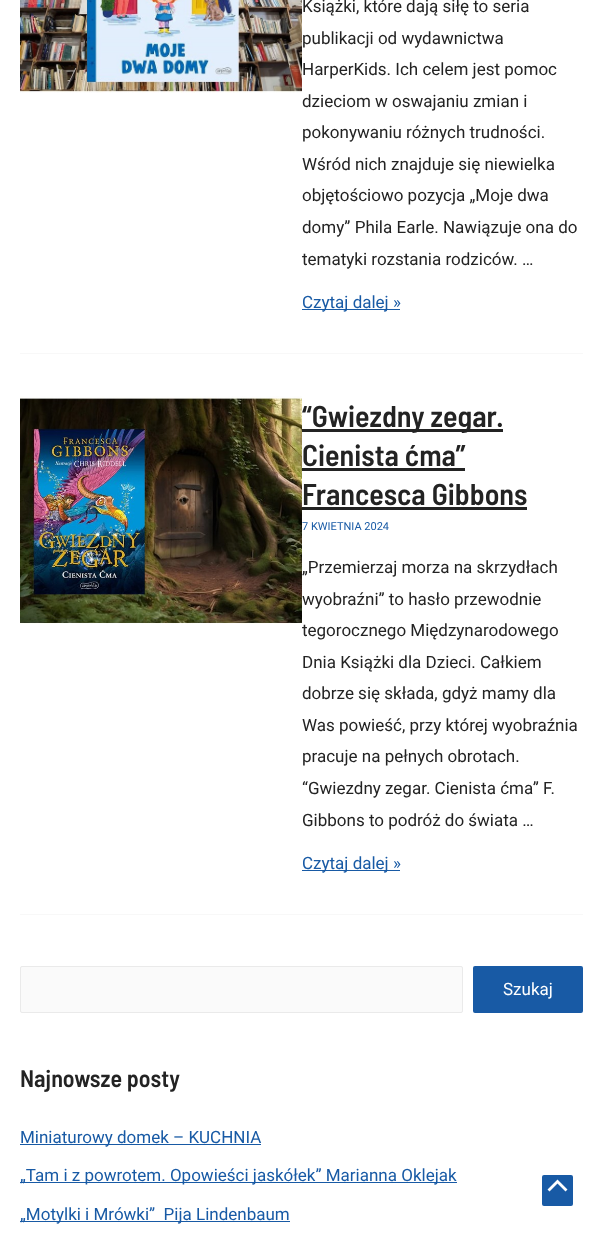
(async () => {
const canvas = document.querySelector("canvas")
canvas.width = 603
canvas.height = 1236
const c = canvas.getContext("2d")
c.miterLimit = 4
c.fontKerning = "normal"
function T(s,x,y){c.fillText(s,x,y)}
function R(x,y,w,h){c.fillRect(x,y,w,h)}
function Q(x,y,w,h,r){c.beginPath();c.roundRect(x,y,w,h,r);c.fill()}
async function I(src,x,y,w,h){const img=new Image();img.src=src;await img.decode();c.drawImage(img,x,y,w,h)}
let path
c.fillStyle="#fff"
R(0,0,603,1236)
c.fillStyle="#f8f8f8"
R(20,353,563,1)
await I("1.png",20,0,282,93)
c.font="17px Roboto"
c.fillStyle="#232323"
T("Książki, które dają siłę to seria",302,12)
T("publikacji od wydawnictwa",302,44)
T("HarperKids. Ich celem jest pomoc",302,75)
T("dzieciom w oswajaniu zmian i",302,107)
T("pokonywaniu różnych trudności.",302,138)
T("Wśród nich znajduje się niewielka",302,170)
T("objętościowo pozycja „Moje dwa",302,201)
T("domy” Phila Earle. Nawiązuje ona do",302,233)
T("tematyki rozstania rodziców. …",302,265)
c.fillStyle="#185aa5"
R(302,309,98,1)
T("Czytaj dalej »",302,308)
c.fillStyle="#f8f8f8"
R(20,914,563,1)
c.fillStyle="#232323"
R(302,429,201,3)
c.font="600 30px Barlow Semi Condensed"
T("“Gwiezdny zegar.",302,427)
c.font="11px Roboto"
c.fillStyle="#185aa5"
T("7 KWIETNIA 2024",302,530)
c.font="17px Roboto"
c.fillStyle="#232323"
T("„Przemierzaj morza na skrzydłach",302,573)
T("wyobraźni” to hasło przewodnie",302,605)
T("tegorocznego Międzynarodowego",302,636)
await I("2.png",20,396,282,228)
c.font="600 30px Barlow Semi Condensed"
T("Cienista ćma”",302,466)
R(302,468,163,3)
T("Francesca Gibbons",302,505)
R(302,507,225,3)
c.font="17px Roboto"
T("Dnia Książki dla Dzieci. Całkiem",302,668)
T("dobrze się składa, gdyż mamy dla",302,699)
T("Was powieść, przy której wyobraźnia",302,731)
T("pracuje na pełnych obrotach.",302,762)
T("“Gwiezdny zegar. Cienista ćma” F.",302,794)
T("Gibbons to podróż do świata …",302,826)
c.fillStyle="#185aa5"
R(302,870,98,1)
T("Czytaj dalej »",302,869)
c.fillStyle="#fafafa"
c.beginPath()
c.roundRect(20.5,966.5,442,46,1.5)
c.fill()
c.strokeStyle="#eaeaea"
c.stroke()
c.fillStyle="#185aa5"
Q(473,966,110,47,2)
c.fillStyle="#fff"
T("Szukaj",503,995)
c.font="600 24px Barlow Semi Condensed"
c.fillStyle="#232323"
T("Najnowsze posty",20,1087)
c.fillStyle="#185aa5"
R(20,1144,241,1)
c.font="17px Roboto"
T("Miniaturowy domek – KUCHNIA",20,1143)
R(20,1182,437,1)
T("„Tam i z powrotem. Opowieści jaskółek” Marianna Oklejak",20,1181)
R(20,1221,270,1)
T("„Motylki i Mrówki”  Pija Lindenbaum",20,1220)
Q(542,1175,31,31,2)
c.fillStyle="#fff"
path = new Path2D("M567.5 1189.5l-10-10l-10 10l2 2l8-8l8 8z")
c.fill(path)
})()
